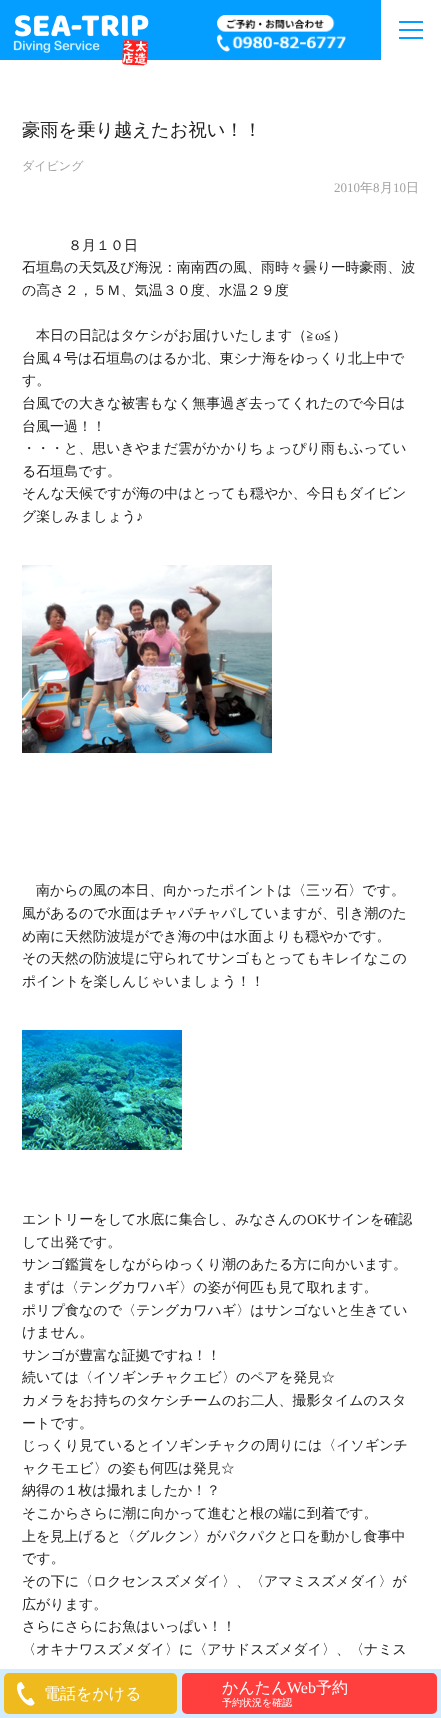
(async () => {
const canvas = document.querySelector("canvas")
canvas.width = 441
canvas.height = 1718
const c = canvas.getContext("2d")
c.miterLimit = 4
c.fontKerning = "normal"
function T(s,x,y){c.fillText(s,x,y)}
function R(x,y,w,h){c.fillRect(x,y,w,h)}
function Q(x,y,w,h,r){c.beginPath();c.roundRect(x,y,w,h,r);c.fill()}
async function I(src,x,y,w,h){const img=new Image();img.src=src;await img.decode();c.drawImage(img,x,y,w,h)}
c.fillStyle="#fff"
R(0,0,441,1718)
c.fillStyle="#039eff"
R(0,0,381,60)
await I("1.png",13,15,136,51)
await I("2.png",217,15,129,37)
R(399,29,24,2)
R(399,21,24,2)
R(399,37,24,2)
c.font="500 18.25px WenQuanYi Zen Hei"
c.fillStyle="#222"
T("豪雨を乗り越えたお祝い！！",22,136)
c.font="500 12px WenQuanYi Zen Hei"
c.fillStyle="#a2a2a2"
T("ダイビング",22,170)
c.font="13px Liberation Serif"
T("2010",334,192)
c.font="500 13px WenQuanYi Zen Hei"
T("年",360,192)
c.font="13px Liberation Serif"
T("8",373,192)
c.font="500 13px WenQuanYi Zen Hei"
T("月",380,192)
c.font="13px Liberation Serif"
T("10",393,192)
c.font="500 13px WenQuanYi Zen Hei"
T("日",406,192)
c.font="500 14px WenQuanYi Zen Hei"
c.fillStyle="#222"
T("８月１０日",68,250)
T("石垣島の天気及び海況：南南西の風、雨時々曇り一時豪雨、波",22,272)
T("の高さ２，５Ｍ、気温３０度、水温２９度",22,295)
T("本日の日記はタケシがお届けいたします（≧",36,340)
c.font="14px Liberation Serif"
T("ω",315,340)
c.font="500 14px WenQuanYi Zen Hei"
T("≦）",324,340)
T("台風４号は石垣島のはるか北、東シナ海をゆっくり北上中で",22,363)
T("す。",22,385)
T("台風での大きな被害もなく無事過ぎ去ってくれたので今日は",22,408)
T("台風一過！！",22,431)
T("・・・と、思いきやまだ雲がかかりちょっぴり雨もふってい",22,453)
T("る石垣島です。",22,476)
T("そんな天候ですが海の中はとっても穏やか、今日もダイビン",22,498)
T("グ楽しみましょう",22,521)
c.font="14px Liberation Serif"
T("♪",136,521)
await I("3.png",22,565,250,188)
c.font="500 14px WenQuanYi Zen Hei"
T("南からの風の本日、向かったポイントは〈三ッ石〉です。",36,895)
T("風があるので水面はチャパチャパしていますが、引き潮のた",22,918)
T("め南に天然防波堤ができ海の中は水面よりも穏やかです。",22,941)
T("その天然の防波堤に守られてサンゴもとってもキレイなこの",22,963)
T("ポイントを楽しんじゃいましょう！！",22,986)
await I("4.png",22,1030,160,120)
T("エントリーをして水底に集合し、みなさんの",22,1224)
c.font="14px Liberation Serif"
T("OK",307,1224)
c.font="500 14px WenQuanYi Zen Hei"
T("サインを確認",327,1224)
T("して出発です。",22,1247)
T("サンゴ鑑賞をしながらゆっくり潮のあたる方に向かいます。",22,1269)
T("まずは〈テングカワハギ〉の姿が何匹も見て取れます。",22,1292)
T("ポリプ食なので〈テングカワハギ〉はサンゴないと生きてい",22,1315)
T("けません。",22,1337)
T("サンゴが豊富な証拠ですね！！",22,1360)
T("続いては〈イソギンチャクエビ〉のペアを発見☆",22,1382)
T("カメラをお持ちのタケシチームのお二人、撮影タイムのスタ",22,1405)
T("ートです。",22,1428)
T("じっくり見ているとイソギンチャクの周りには〈イソギンチ",22,1450)
T("ャクモエビ〉の姿も何匹は発見☆",22,1473)
T("納得の１枚は撮れましたか！？",22,1495)
T("そこからさらに潮に向かって進むと根の端に到着です。",22,1518)
T("上を見上げると〈グルクン〉がパクパクと口を動かし食事中",22,1541)
T("です。",22,1563)
T("その下に〈ロクセンスズメダイ〉、〈アマミスズメダイ〉が",22,1586)
T("広がります。",22,1609)
T("さらにさらにお魚はいっぱい！！",22,1631)
T("〈オキナワスズメダイ〉に〈アサドスズメダイ〉、〈ナミス",22,1654)
c.fillStyle="#8cd2ff66"
R(0,1669,441,49)
c.fillStyle="#eeba1e"
Q(4,1673,173,41,5)
await I("5.png",17,1682,18,24)
c.font="500 16px WenQuanYi Zen Hei"
c.fillStyle="#fff"
T("電話をかける",44,1699)
c.fillStyle="#ff3e3e"
Q(182,1673,255,41,5)
c.fillStyle="#fff"
T("かんたん",222,1693)
c.font="16px Liberation Serif"
T("Web",287,1693)
c.font="500 16px WenQuanYi Zen Hei"
T("予約",316,1693)
c.font="500 10px WenQuanYi Zen Hei"
T("予約状況を確認",222,1706)
})()
